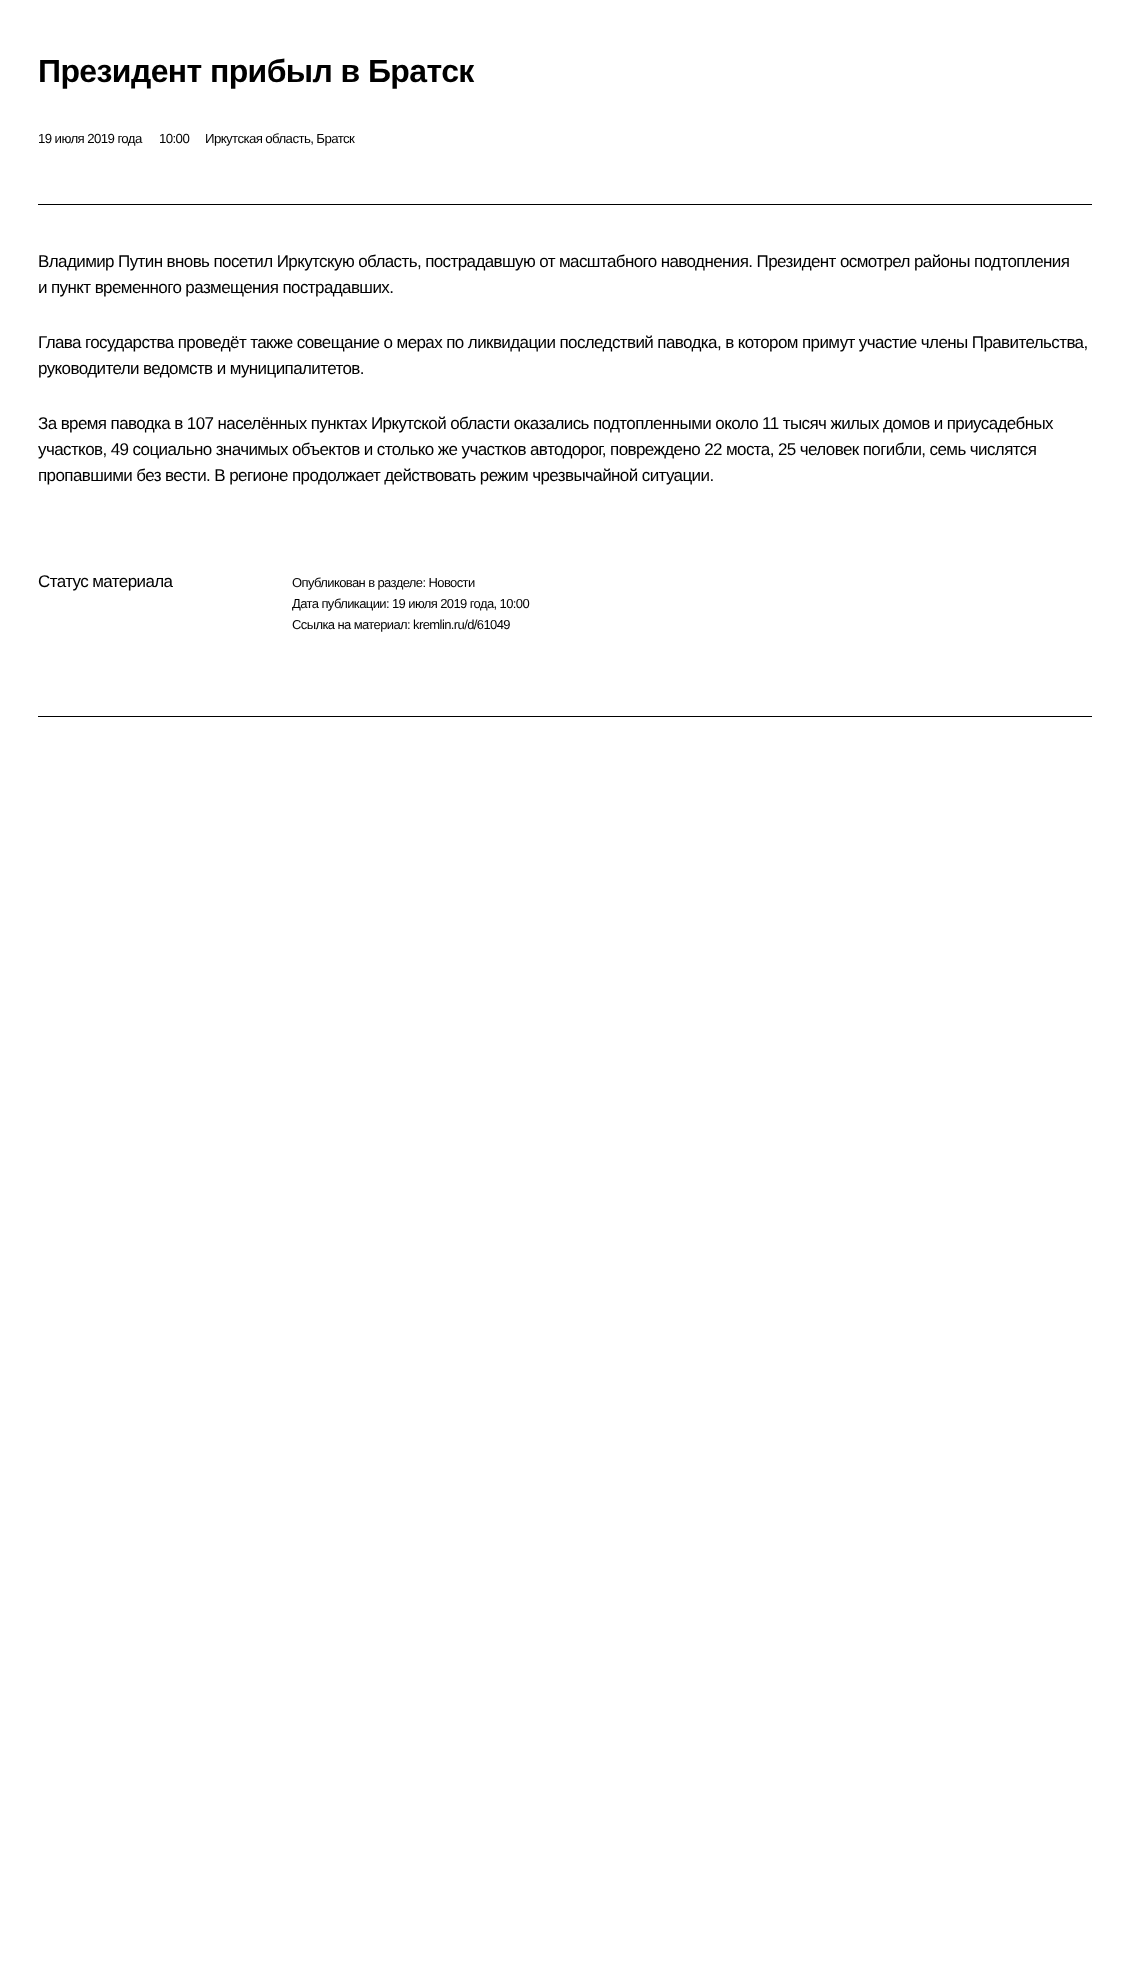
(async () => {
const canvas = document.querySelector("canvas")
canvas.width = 1130
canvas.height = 1976
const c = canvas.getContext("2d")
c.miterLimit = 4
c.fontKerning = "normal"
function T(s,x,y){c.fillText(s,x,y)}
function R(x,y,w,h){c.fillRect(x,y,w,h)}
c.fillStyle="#fff"
R(0,0,1130,1976)
c.fillStyle="#000"
R(38,716,1054,1)
R(38,204,1054,1)
c.letterSpacing="-0.6px"
c.font="bold 32px Liberation Sans"
T("Президент прибыл в Братск",38,82)
c.font="13.25px Liberation Sans"
T("19 июля 2019 года",38,143)
T("10:00",159,143)
T("Иркутская область, Братск",205,143)
c.font="17px Liberation Sans"
T("Владимир Путин вновь посетил Иркутскую область, пострадавшую от масштабного наводнения. Президент осмотрел районы подтопления",38,267)
T("и пункт временного размещения пострадавших.",38,293)
T("Глава государства проведёт также совещание о мерах по ликвидации последствий паводка, в котором примут участие члены Правительства,",38,348)
T("руководители ведомств и муниципалитетов.",38,374)
T("За время паводка в 107 населённых пунктах Иркутской области оказались подтопленными около 11 тысяч жилых домов и приусадебных",38,429)
T("участков, 49 социально значимых объектов и столько же участков автодорог, повреждено 22 моста, 25 человек погибли, семь числятся",38,455)
T("пропавшими без вести. В регионе продолжает действовать режим чрезвычайной ситуации.",38,481)
T("Статус материала",38,587)
c.font="13px Liberation Sans"
T("Опубликован в разделе: Новости",292,587)
T("Дата публикации: 19 июля 2019 года, 10:00",292,608)
T("Ссылка на материал: kremlin.ru/d/61049",292,629)
})()
